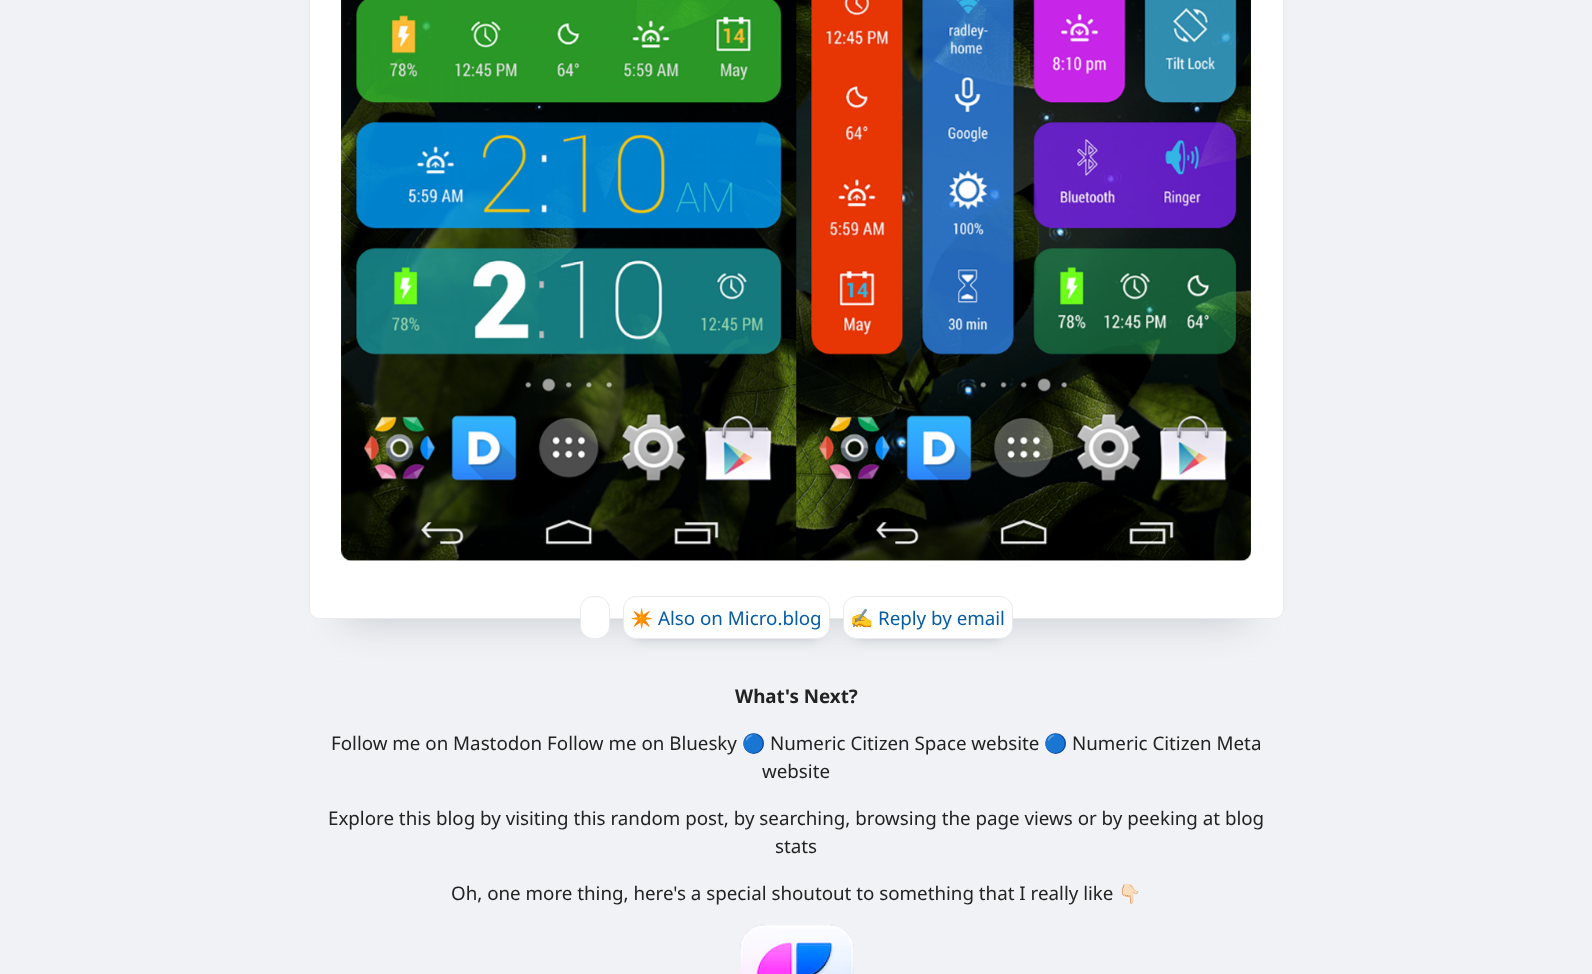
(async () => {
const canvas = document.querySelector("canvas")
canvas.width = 1592
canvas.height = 974
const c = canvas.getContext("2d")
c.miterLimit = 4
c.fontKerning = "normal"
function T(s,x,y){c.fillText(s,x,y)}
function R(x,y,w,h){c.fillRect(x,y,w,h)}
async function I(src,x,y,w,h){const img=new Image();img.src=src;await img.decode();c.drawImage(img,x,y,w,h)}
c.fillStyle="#f0f2f5"
R(0,0,1592,974)
c.fillStyle="#c2c6cb"
c.filter="blur(19px)"
c.beginPath()
c.rect(346,-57,900,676)
c.fill()
c.filter="none"
c.fillStyle="#fff"
c.beginPath()
c.roundRect(309.5,-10.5,974,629,9.5)
c.fill()
c.strokeStyle="#eaeaec"
c.stroke()
await I("1.png",341,0,910,561)
c.beginPath()
c.roundRect(580.5,596.5,29,42,12.5)
c.fill()
c.stroke()
c.fillStyle="#c2c6cb"
c.filter="blur(6px)"
c.beginPath()
c.rect(635,621,183,18)
c.fill()
c.filter="none"
c.fillStyle="#fff"
c.beginPath()
c.roundRect(623.5,596.5,206,42,12.5)
c.fill()
c.stroke()
c.font="18.75px Noto Color Emoji"
c.fillStyle="#065ca5"
T("✴️",630,625)
c.font="18.75px Noto Sans"
T("Also on Micro.blog",658,625)
c.fillStyle="#c2c6cb"
c.filter="blur(6px)"
c.beginPath()
c.rect(855,621,145,18)
c.fill()
c.filter="none"
c.fillStyle="#fff"
c.beginPath()
c.roundRect(843.5,596.5,169,42,12.5)
c.fill()
c.stroke()
c.font="18.75px Noto Color Emoji"
c.fillStyle="#065ca5"
T("✍️",850,625)
c.font="18.75px Noto Sans"
T("Reply by email",878,625)
c.font="bold 18.75px Noto Sans"
c.fillStyle="#222"
T("What's Next?",735,703)
c.font="18.75px Noto Sans"
T("Follow me on Mastodon Follow me on Bluesky",331,750)
c.font="18.75px Noto Color Emoji"
T("🔵",742,750)
c.font="18.75px Noto Sans"
T("Numeric Citizen Space website",770,750)
c.font="18.75px Noto Color Emoji"
T("🔵",1044,750)
c.font="18.75px Noto Sans"
T("Numeric Citizen Meta",1072,750)
T("website",762,778)
T("Explore this blog by visiting this random post, by searching, browsing the page views or by peeking at blog",328,825)
T("stats",775,853)
T("Oh, one more thing, here's a special shoutout to something that I really like",451,900)
c.font="18.75px Noto Color Emoji"
T("👇🏻",1118,900)
await I("2.png",740,924,114,50)
})()
